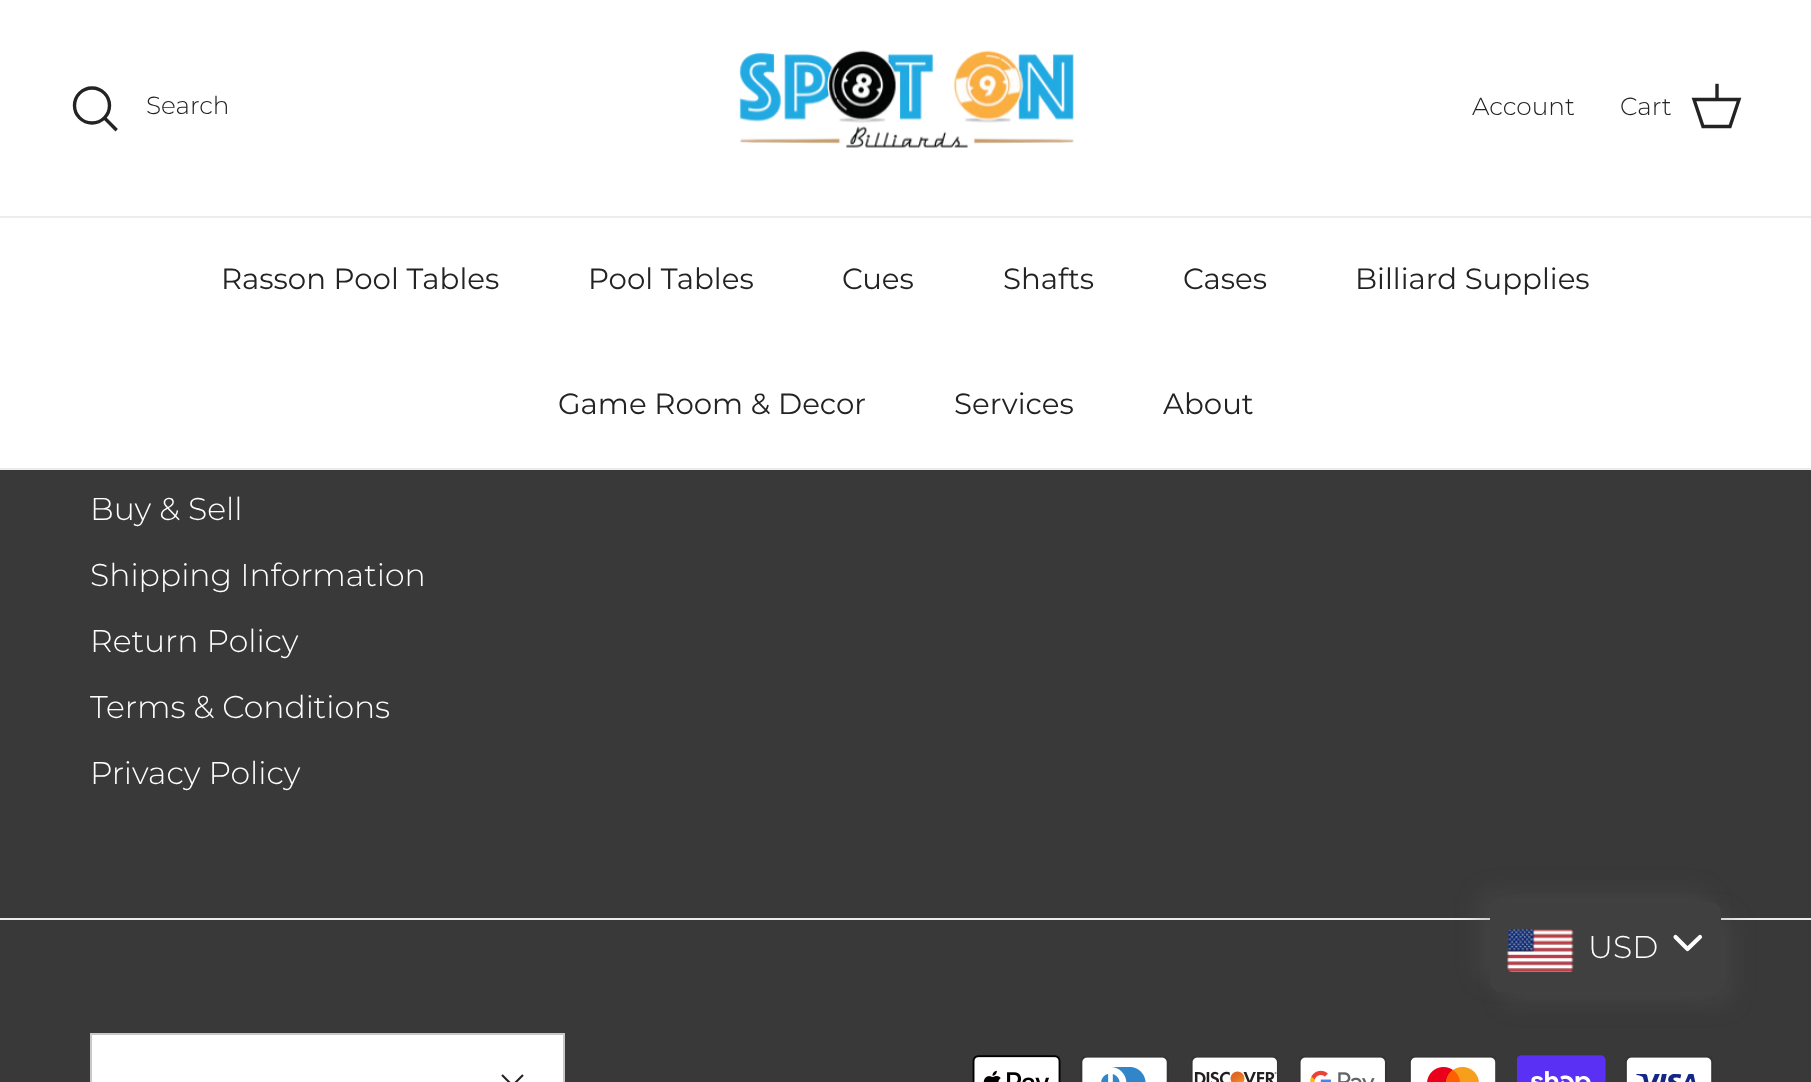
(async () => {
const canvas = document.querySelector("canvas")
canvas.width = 1811
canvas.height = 1082
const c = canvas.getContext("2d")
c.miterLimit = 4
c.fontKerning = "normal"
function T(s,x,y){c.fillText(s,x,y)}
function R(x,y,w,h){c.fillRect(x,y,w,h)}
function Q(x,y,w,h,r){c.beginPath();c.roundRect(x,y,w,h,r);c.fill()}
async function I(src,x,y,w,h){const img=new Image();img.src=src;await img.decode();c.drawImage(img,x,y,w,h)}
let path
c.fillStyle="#393939"
R(0,0,1811,1082)
c.fillStyle="#fff"
R(0,0,1811,216)
c.fillStyle="#ececec"
R(0,216,1811,2)
c.beginPath()
c.arc(92,105.5,17.5,0,7)
c.strokeStyle="#232323"
c.lineWidth=3.4
c.stroke()
c.font="300 24.75px Montserrat"
c.fillStyle="#232323"
T("Search",146,114)
path = new Path2D("M105.5 119l10 10")
c.lineCap="square"
c.stroke(path)
await I("1.png",739,50,335,98)
T("Account",1472,115)
T("Cart",1620,115)
path = new Path2D("M1694 99.5h45l-9 27h-27z")
c.lineCap="butt"
c.stroke(path)
path = new Path2D("M1717 99v-13.5")
c.lineCap="square"
c.stroke(path)
c.fillStyle="#ececec"
R(0,468,1811,2)
c.fillStyle="#fff"
R(0,218,1811,250)
c.font="29.25px Montserrat"
c.fillStyle="#232323"
T("Rasson Pool Tables",221,289)
T("Pool Tables",588,289)
T("Cues",842,289)
T("Shafts",1003,289)
T("Cases",1183,289)
T("Billiard Supplies",1355,289)
T("Game Room & Decor",558,414)
T("Services",954,414)
T("About",1163,414)
c.font="300 31.5px Montserrat"
c.fillStyle="#fff"
T("Buy & Sell",90,520)
T("Shipping Information",90,586)
T("Return Policy",90,652)
T("Terms & Conditions",90,718)
T("Privacy Policy",90,784)
c.fillStyle="#ececec"
R(0,918,1811,2)
c.fillStyle="#fff"
c.beginPath()
c.rect(91,1034,473,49)
c.fill()
c.strokeStyle="#c8c8c8"
c.lineWidth=2
c.stroke()
path = new Path2D("M523 1075l-10.5 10.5l-10.5-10.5")
c.strokeStyle="#232323"
c.lineWidth=2.1
c.lineCap="butt"
c.stroke(path)
await I("2.png",972,1055,89,27)
await I("3.png",1080,1056,89,26)
await I("4.png",1191,1056,87,26)
await I("5.png",1299,1056,88,26)
await I("6.png",1409,1056,87,26)
await I("7.png",1517,1055,89,27)
await I("8.png",1625,1056,88,26)
c.fillStyle="#6161613d"
c.filter="blur(11px)"
c.beginPath()
c.roundRect(1478,891,232,90,11)
c.fill()
c.filter="none"
c.filter="blur(11px)"
c.beginPath()
c.roundRect(1501,914,232,90,11)
c.fill()
c.filter="none"
c.fillStyle="#404040"
Q(1490,902,231,90,11)
await I("9.png",1507,929,67,43)
c.fillStyle="#fff"
T("USD",1588,958)
path = new Path2D("M1675.5 937l12 12l12.5-12")
c.strokeStyle="#fff"
c.lineWidth=4.1
c.lineCap="round"
c.lineJoin="round"
c.stroke(path)
})()
